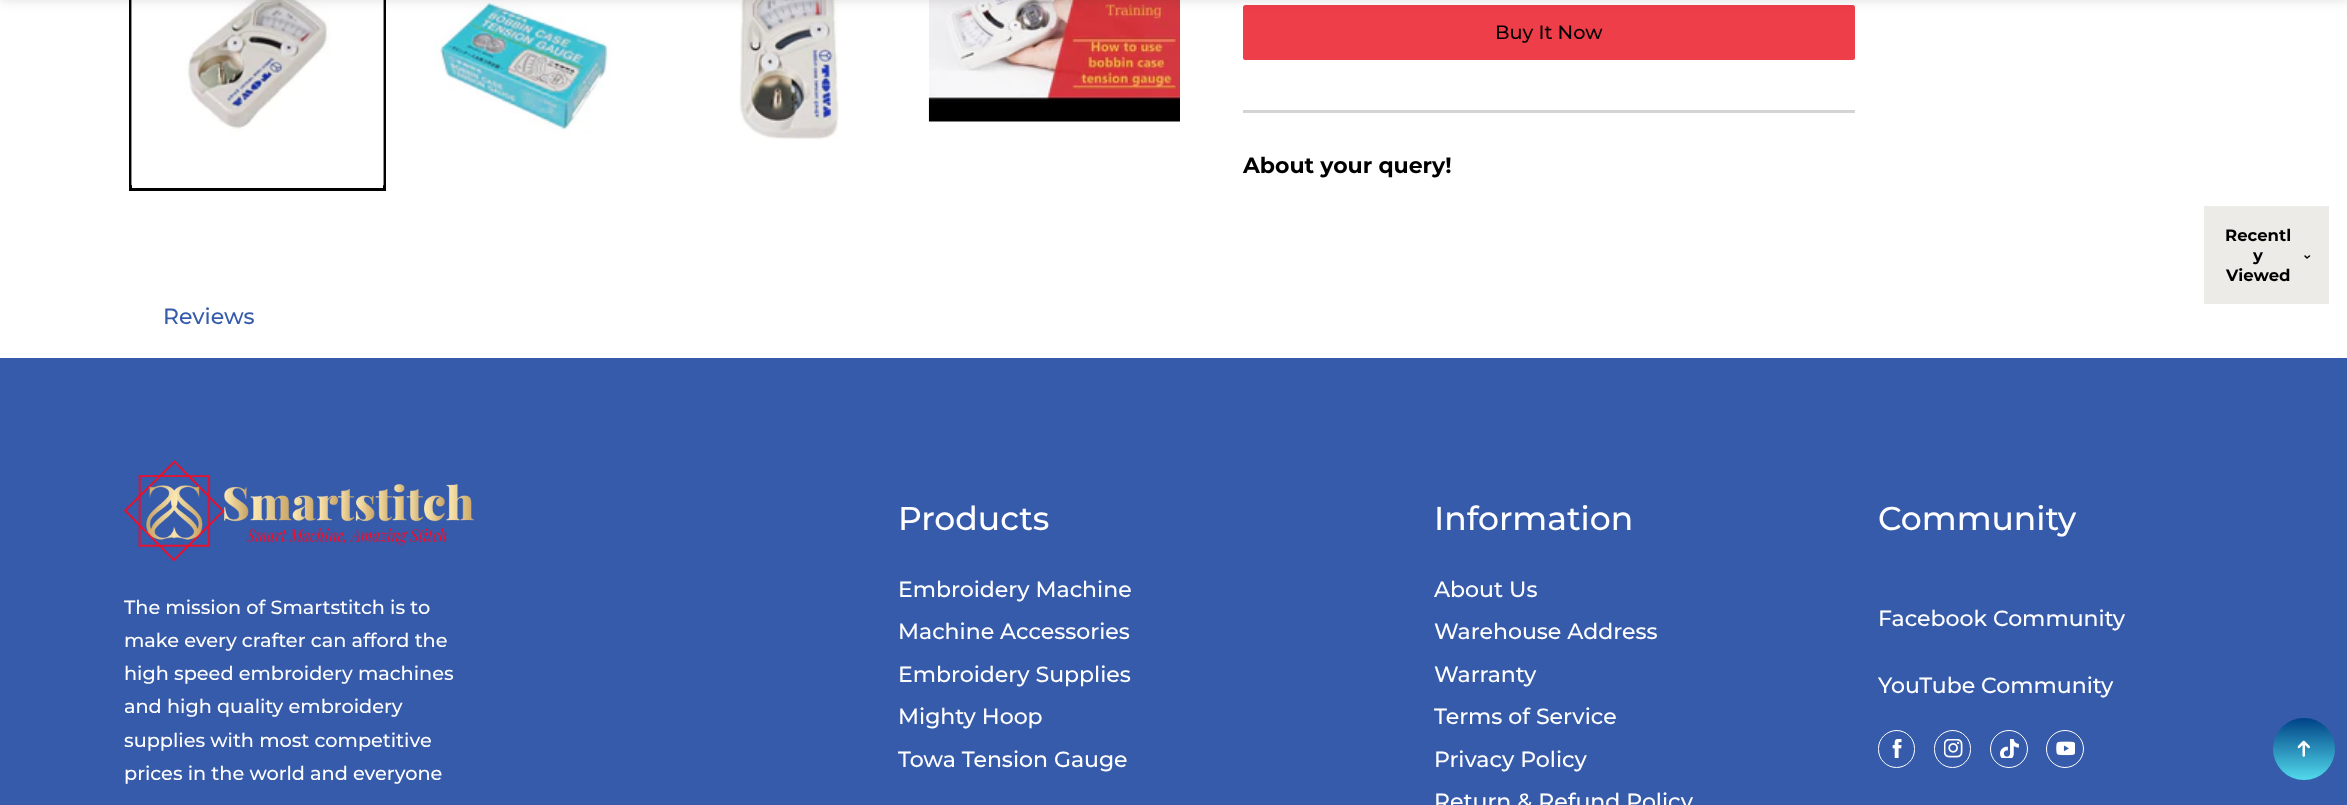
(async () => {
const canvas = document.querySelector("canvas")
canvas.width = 2347
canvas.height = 805
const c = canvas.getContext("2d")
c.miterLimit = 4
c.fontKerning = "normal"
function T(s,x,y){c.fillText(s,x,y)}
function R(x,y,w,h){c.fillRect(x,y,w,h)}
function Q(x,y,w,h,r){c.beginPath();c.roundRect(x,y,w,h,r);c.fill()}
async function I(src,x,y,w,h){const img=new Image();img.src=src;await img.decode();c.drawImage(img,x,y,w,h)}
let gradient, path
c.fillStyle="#fff"
R(0,0,2347,805)
c.strokeStyle="#000"
c.lineWidth=3
c.strokeRect(130.5,-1.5,254,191)
await I("1.png",131,0,253,186)
await I("2.png",433,3,180,131)
await I("3.png",739,0,100,140)
await I("4.png",928,0,252,122)
c.fillStyle="#ee3e49"
Q(1243,5,612,55,2.5)
c.fillStyle="#1a1a1a26"
c.filter="blur(6px)"
c.beginPath()
c.rect(0,-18,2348,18)
c.fill()
c.filter="none"
c.fillStyle="#d4d4d4"
R(1243,110,612,3)
c.font="500 19.25px Montserrat"
c.fillStyle="#000"
T("Buy It Now",1495,39)
c.font="bold 22px Montserrat"
T("About your query!",1243,173)
c.font="500 22px Montserrat"
c.fillStyle="#365bab"
T("Reviews",163,324)
c.fillStyle="#ecebe7"
R(2204,206,125,98)
c.font="bold 16.5px Montserrat"
c.fillStyle="#000"
T("Recentl",2225,241)
T("y",2253,261)
path = new Path2D("M2305 256l2 2l2.5-2")
c.lineWidth=1.5
c.lineCap="round"
c.lineJoin="round"
c.stroke(path)
T("Viewed",2226,281)
c.fillStyle="#365bab"
R(0,358,2347,447)
await I("5.png",123,460,351,102)
c.font="500 19.25px Montserrat"
c.fillStyle="#fff"
T("The mission of Smartstitch is to",124,614)
T("make every crafter can afford the",124,647)
T("high speed embroidery machines",124,680)
T("and high quality embroidery",124,713)
T("supplies with most competitive",124,747)
T("prices in the world and everyone",124,780)
c.font="500 33px Montserrat"
T("Products",898,530)
c.font="500 22px Montserrat"
T("Embroidery Machine",898,597)
T("Machine Accessories",898,639)
T("Embroidery Supplies",898,682)
T("Mighty Hoop",898,724)
T("Towa Tension Gauge",898,767)
c.font="500 33px Montserrat"
T("Information",1434,530)
c.font="500 22px Montserrat"
T("About Us",1434,597)
T("Warehouse Address",1434,639)
T("Warranty",1434,682)
T("Terms of Service",1434,724)
T("Privacy Policy",1434,767)
T("Return & Refund Policy",1434,809)
c.font="500 33px Montserrat"
T("Community",1878,530)
c.font="500 22px Montserrat"
T("Facebook Community",1878,626)
T("YouTube Community",1878,693)
c.beginPath()
c.roundRect(1878.5,730.5,36,37,18)
c.strokeStyle="#fff"
c.lineWidth=1
c.lineJoin="miter"
c.stroke()
await I("6.png",1892,739,10,19)
c.beginPath()
c.roundRect(1934.5,730.5,36,37,18)
c.stroke()
await I("7.png",1944,739,19,19)
c.beginPath()
c.arc(2009,749,18.5,0,7)
c.stroke()
await I("8.png",2000,739,19,19)
c.beginPath()
c.arc(2065,749,18.5,0,7)
c.stroke()
await I("9.png",2056,741,19,15)
gradient = c.createLinearGradient(2304,718,2304,780)
gradient.addColorStop(0,"#004286")
gradient.addColorStop(1,"#52daec")
c.fillStyle = gradient
c.beginPath()
c.arc(2304,749,31,0,7)
c.fill()
await I("10.png",2297,740,13,17)
})()
